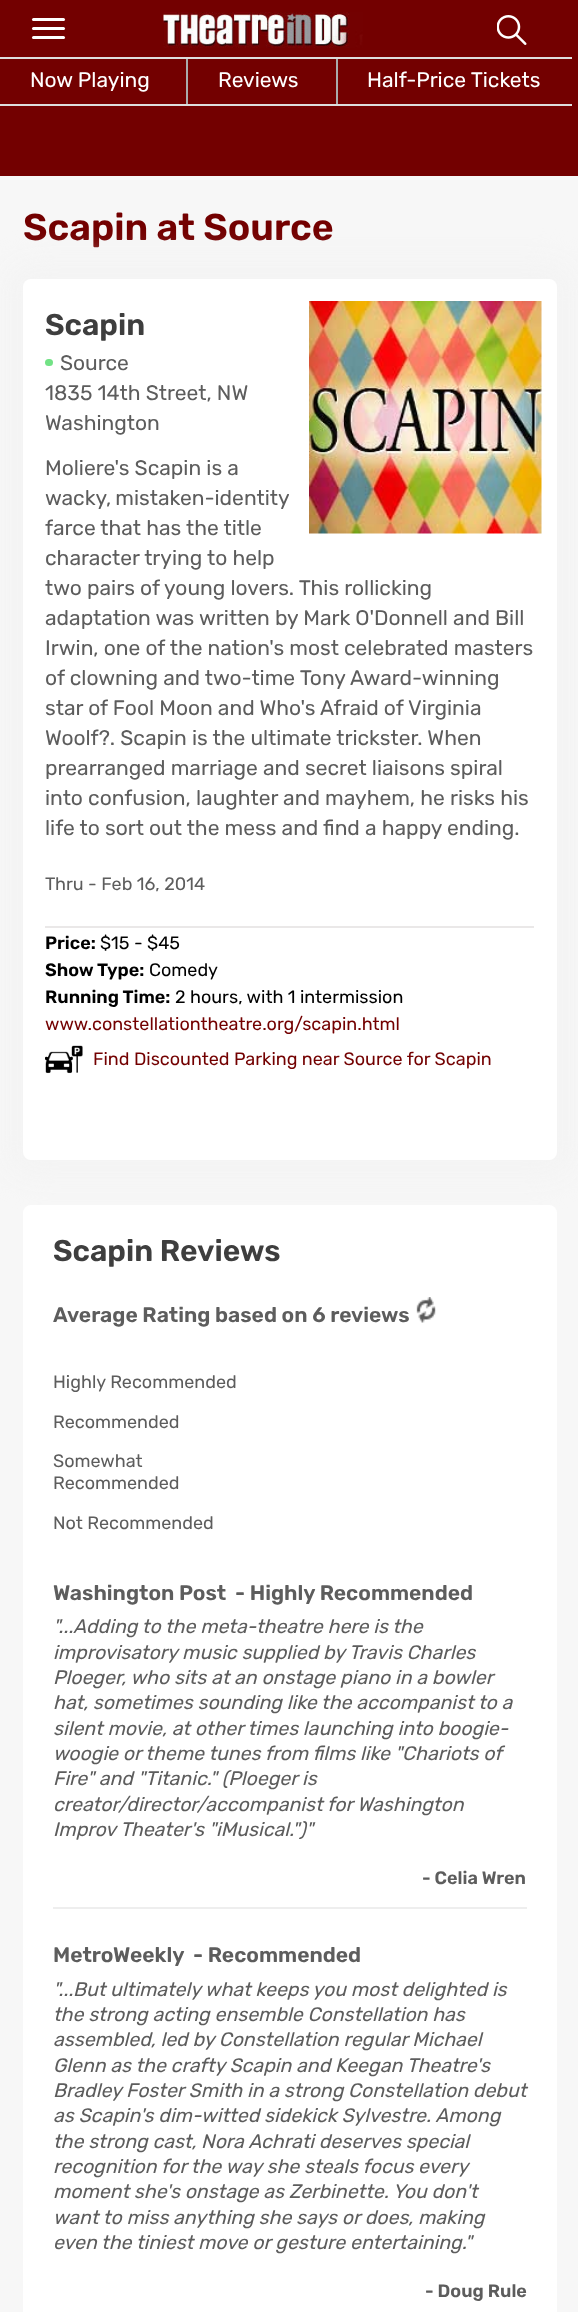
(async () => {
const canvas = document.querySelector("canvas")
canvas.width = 578
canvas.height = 2312
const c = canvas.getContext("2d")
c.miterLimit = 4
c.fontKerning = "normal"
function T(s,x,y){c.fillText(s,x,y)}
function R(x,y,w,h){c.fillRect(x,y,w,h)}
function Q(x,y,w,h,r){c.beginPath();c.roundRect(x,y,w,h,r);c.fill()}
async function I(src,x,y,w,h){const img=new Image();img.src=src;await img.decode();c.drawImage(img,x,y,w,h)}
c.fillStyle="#f7f7f7"
R(0,0,578,2312)
c.fillStyle="#730000"
R(0,0,578,176)
c.fillStyle="#fff"
Q(32,18,33,3,1.5)
Q(32,27,33,3,1.5)
Q(32,36,33,3,1.5)
await I("1.png",163,12,200,36)
await I("2.png",497,15,30,30)
c.fillStyle="#ddd"
R(0,57,572,2)
R(0,104,572,2)
c.fillStyle="#aaa"
R(186,59,2,45)
c.font="21px Rubik"
c.fillStyle="#fff"
T("Now Playing",30,87)
c.fillStyle="#aaa"
R(336,59,2,45)
c.fillStyle="#fff"
T("Reviews",218,87)
T("Half-Price Tickets",367,87)
c.font="600 37.5px Rubik"
c.fillStyle="#730000"
T("Scapin at Source",23,240)
c.fillStyle="#f3f3f3"
c.filter="blur(15px)"
c.beginPath()
c.roundRect(8,264,564,911,23)
c.fill()
c.filter="none"
c.fillStyle="#fff"
Q(23,279,534,881,8)
c.font="600 30px Rubik"
c.fillStyle="#3e3e3e"
T("Scapin",45,335)
c.fillStyle="#72e285"
Q(45,359,8,7,3.5)
c.font="21px Rubik"
c.fillStyle="#5d5d5d"
T("Source",60,370)
T("1835 14th Street, NW",45,400)
T("Washington",45,430)
await I("3.png",309,301,233,233)
T("Moliere's Scapin is a",45,475)
c.wordSpacing="-1px"
T("wacky, mistaken-identity",45,505)
c.wordSpacing="0px"
T("farce that has the title",45,535)
T("character trying to help",45,565)
T("two pairs of young lovers. This rollicking",45,595)
T("adaptation was written by Mark O'Donnell and Bill",45,625)
T("Irwin, one of the nation's most celebrated masters",45,655)
T("of clowning and two-time Tony Award-winning",45,685)
T("star of Fool Moon and Who's Afraid of Virginia",45,715)
T("Woolf?. Scapin is the ultimate trickster. When",45,745)
T("prearranged marriage and secret liaisons spiral",45,775)
T("into confusion, laughter and mayhem, he risks his",45,805)
T("life to sort out the mess and find a happy ending.",45,835)
c.font="18px Rubik"
T("Thru - Feb 16, 2014",45,890)
c.fillStyle="#eae8e8"
R(45,926,489,2)
c.font="600 18px Rubik"
c.fillStyle="#000"
T("Price:",45,949)
c.font="18px Rubik"
T("$15 - $45",100,949)
c.font="600 18px Rubik"
T("Show Type:",45,976)
c.font="18px Rubik"
T("Comedy",149,976)
c.font="600 18px Rubik"
T("Running Time:",45,1003)
c.font="18px Rubik"
T("2 hours, with 1 intermission",175,1003)
c.fillStyle="#730000"
T("www.constellationtheatre.org/scapin.html",45,1030)
await I("4.png",45,1045,38,29)
T("Find Discounted Parking near Source for Scapin",93,1065)
c.fillStyle="#fff"
Q(23,1205,534,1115,8)
c.font="600 30px Rubik"
c.fillStyle="#3e3e3e"
T("Scapin Reviews",53,1261)
c.font="600 21px Rubik"
c.fillStyle="#5d5d5d"
T("Average Rating based on 6 reviews",53,1322)
await I("5.png",416,1297,20,26)
c.font="18px Rubik"
T("Highly Recommended",53,1388)
T("Recommended",53,1428)
T("Somewhat",53,1467)
T("Recommended",53,1489)
T("Not Recommended",53,1529)
c.fillStyle="#eee"
R(53,1907,474,2)
c.font="600 21px Rubik"
c.fillStyle="#5d5d5d"
T("Washington Post",53,1600)
T("- Highly Recommended",235,1600)
c.font="italic 19.5px Rubik"
T("\"...Adding to the meta-theatre here is the",53,1633)
T("improvisatory music supplied by Travis Charles",53,1659)
T("Ploeger, who sits at an onstage piano in a bowler",53,1684)
T("hat, sometimes sounding like the accompanist to a",53,1709)
T("silent movie, at other times launching into boogie-",53,1735)
T("woogie or theme tunes from films like \"Chariots of",53,1760)
T("Fire\" and \"Titanic.\" (Ploeger is",53,1785)
T("creator/director/accompanist for Washington",53,1811)
T("Improv Theater's \"iMusical.\")\"",53,1836)
c.font="600 18px Rubik"
T("- Celia Wren",422,1884)
c.font="600 21px Rubik"
T("MetroWeekly",53,1962)
T("- Recommended",193,1962)
c.font="italic 19.5px Rubik"
T("\"...But ultimately what keeps you most delighted is",53,1996)
T("the strong acting ensemble Constellation has",53,2021)
T("assembled, led by Constellation regular Michael",53,2046)
T("Glenn as the crafty Scapin and Keegan Theatre's",53,2072)
T("Bradley Foster Smith in a strong Constellation debut",53,2097)
T("as Scapin's dim-witted sidekick Sylvestre. Among",53,2122)
T("the strong cast, Nora Achrati deserves special",53,2148)
T("recognition for the way she steals focus every",53,2173)
T("moment she's onstage as Zerbinette. You don't",53,2198)
T("want to miss anything she says or does, making",53,2224)
T("even the tiniest move or gesture entertaining.\"",53,2249)
c.font="600 18px Rubik"
T("- Doug Rule",425,2297)
})()
